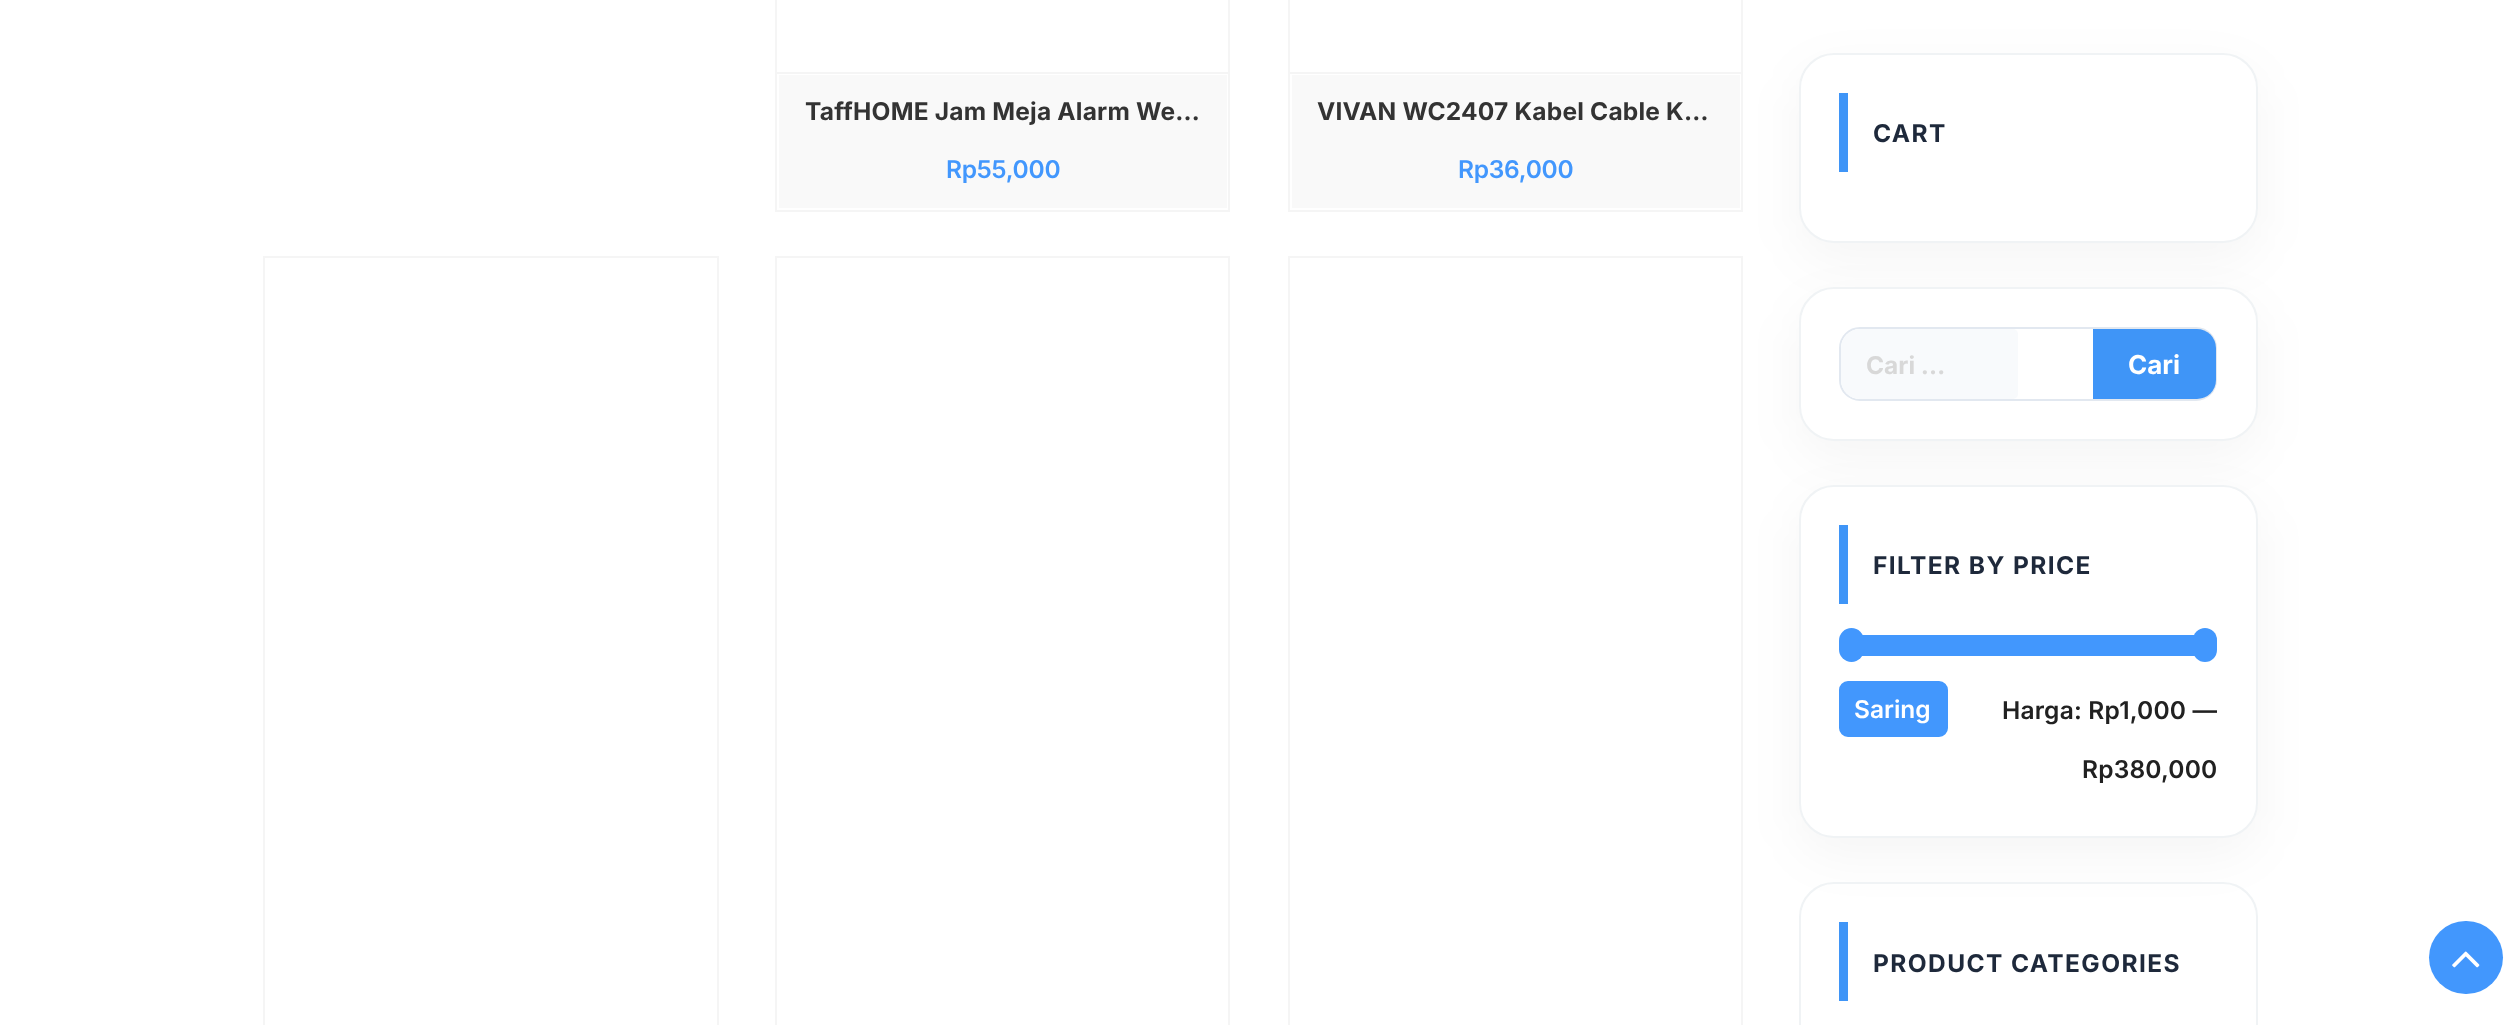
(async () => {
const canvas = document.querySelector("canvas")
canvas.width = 2519
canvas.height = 1025
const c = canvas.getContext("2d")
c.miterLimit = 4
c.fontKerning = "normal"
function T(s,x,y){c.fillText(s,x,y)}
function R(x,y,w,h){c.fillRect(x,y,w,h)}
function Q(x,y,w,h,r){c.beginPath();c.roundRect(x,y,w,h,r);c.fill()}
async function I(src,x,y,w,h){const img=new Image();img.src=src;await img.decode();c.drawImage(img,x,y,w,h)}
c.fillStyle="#fff"
R(0,0,2519,1025)
c.strokeStyle="#f5f5f5"
c.lineWidth=2
c.strokeRect(776,-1,453,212)
c.fillStyle="#f5f5f5"
R(777,72,452,2)
c.fillStyle="#f9f9f9"
R(779,75,448,133)
c.letterSpacing="0.2px"
c.font="bold 24.5px Inter"
c.fillStyle="#333"
T("TaffHOME Jam Meja Alarm We…",805,120)
c.letterSpacing="-0.25px"
c.font="600 24.5px Inter"
c.fillStyle="#4297fd"
T("Rp55,000",946,178)
c.strokeRect(1289,-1,453,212)
c.fillStyle="#f5f5f5"
R(1290,72,451,2)
c.fillStyle="#f9f9f9"
R(1292,75,448,133)
c.letterSpacing="0.2px"
c.font="bold 24.5px Inter"
c.fillStyle="#333"
T("VIVAN WC2407 Kabel Cable K…",1317,120)
c.letterSpacing="-0.25px"
c.font="600 24.5px Inter"
c.fillStyle="#4297fd"
T("Rp36,000",1458,178)
c.strokeRect(264,257,454,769)
c.strokeRect(776,257,453,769)
c.strokeRect(1289,257,453,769)
c.fillStyle="#0000000a"
c.filter="blur(26px)"
c.beginPath()
c.roundRect(1799,70,459,191,35)
c.fill()
c.filter="none"
c.fillStyle="#fff"
c.beginPath()
c.roundRect(1800,54,457,188,34)
c.fill()
c.strokeStyle="#f0f3f5"
c.stroke()
c.fillStyle="#3f95f7"
R(1839,93,9,79)
c.letterSpacing="1.4px"
c.font="bold 24.5px Inter"
c.fillStyle="#1e293b"
T("CART",1873,142)
c.fillStyle="#0000000a"
c.filter="blur(26px)"
c.beginPath()
c.roundRect(1799,305,459,154,35)
c.fill()
c.filter="none"
c.fillStyle="#fff"
c.beginPath()
c.roundRect(1800,288,457,152,34)
c.fill()
c.stroke()
c.beginPath()
c.roundRect(1840,328,376,72,20)
c.strokeStyle="#e2e8f0"
c.stroke()
c.fillStyle="#f8fafc"
c.beginPath()
c.roundRect(1841,329,177,70,[19,5,5,19])
c.fill()
c.letterSpacing="0px"
c.fillStyle="#d8d8d8"
T("Cari …",1866,374)
c.fillStyle="#3f95f7"
c.beginPath()
c.roundRect(2093,329,123,70,[0,19,19,0])
c.fill()
c.font="bold 26px Inter"
c.fillStyle="#fff"
T("Cari",2128,374)
c.fillStyle="#0000000a"
c.filter="blur(26px)"
c.beginPath()
c.roundRect(1799,502,459,354,35)
c.fill()
c.filter="none"
c.fillStyle="#fff"
c.beginPath()
c.roundRect(1800,486,457,351,34)
c.fill()
c.strokeStyle="#f0f3f5"
c.stroke()
c.fillStyle="#3f95f7"
R(1839,525,9,79)
c.letterSpacing="1.4px"
c.font="bold 24.5px Inter"
c.fillStyle="#1e293b"
T("FILTER BY PRICE",1873,574)
c.fillStyle="#4297fd"
R(1862,635,333,21)
Q(1839,628,25,34,12.5)
Q(2193,628,24,34,12)
c.beginPath()
c.roundRect(1840,682,107,54,8)
c.fill()
c.strokeStyle="#4297fd"
c.stroke()
c.letterSpacing="0px"
c.font="600 24.5px Inter"
c.fillStyle="#fff"
T("Saring",1854,718)
c.letterSpacing="0.2px"
c.fillStyle="#212121"
T("Harga: Rp1,000 —",2002,719)
T("Rp380,000",2082,778)
c.beginPath()
c.roundRect(1800,883,457,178,34)
c.strokeStyle="#f0f3f5"
c.stroke()
c.fillStyle="#3f95f7"
R(1839,922,9,79)
c.letterSpacing="1.4px"
c.font="bold 24.5px Inter"
c.fillStyle="#1e293b"
T("PRODUCT CATEGORIES",1873,972)
c.fillStyle="#4297fd"
Q(2429,921,74,73,36.5)
await I("1.png",2452,951,28,17)
})()
